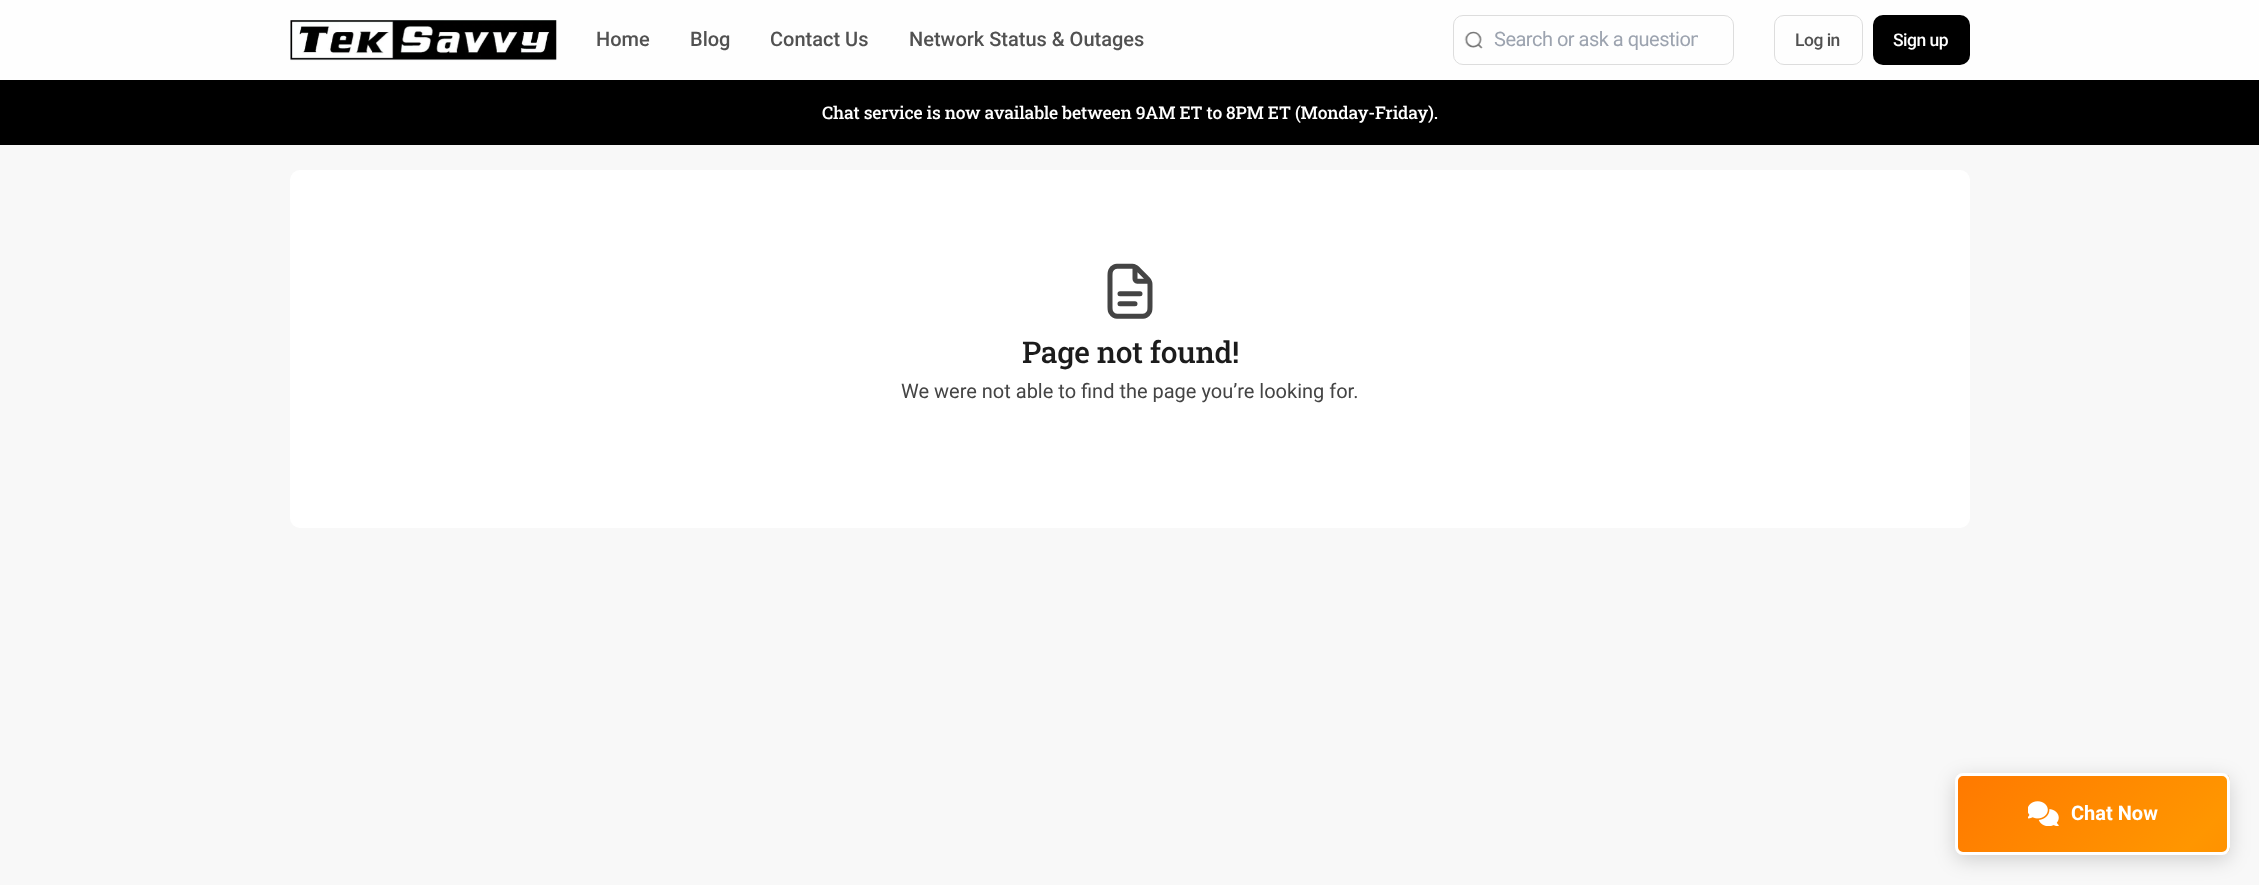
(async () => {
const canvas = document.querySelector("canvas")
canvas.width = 2259
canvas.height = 885
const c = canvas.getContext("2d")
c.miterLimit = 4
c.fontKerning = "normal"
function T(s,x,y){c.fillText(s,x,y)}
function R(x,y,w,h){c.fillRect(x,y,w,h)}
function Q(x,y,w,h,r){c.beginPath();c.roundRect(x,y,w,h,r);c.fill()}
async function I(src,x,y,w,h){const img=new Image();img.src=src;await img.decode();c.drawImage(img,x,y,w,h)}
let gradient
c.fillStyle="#f8f8f8"
R(0,0,2259,885)
c.fillStyle="#fefefe"
R(0,0,2259,80)
await I("1.png",290,20,267,41)
c.font="500 20px Roboto"
c.fillStyle="#515151"
T("Home",596,46)
T("Blog",690,46)
T("Contact Us",770,46)
T("Network Status & Outages",909,46)
c.beginPath()
c.roundRect(1453.5,15.5,280,49,9.5)
c.strokeStyle="#ddd"
c.stroke()
await I("2.png",1464,31,19,18)
c.save()
c.beginPath()
c.rect(1494,28,204,23)
c.clip()
c.letterSpacing="-0.5px"
c.font="20px Roboto"
c.fillStyle="#9ca3af"
T("Search or ask a question",1494,46)
c.restore()
c.beginPath()
c.roundRect(1774.5,15.5,88,49,9.5)
c.stroke()
c.letterSpacing="-0.5px"
c.font="500 17.5px Roboto"
T("Log in",1795,46)
c.fillStyle="#000"
Q(1873,15,97,50,10)
c.fillStyle="#fff"
T("Sign up",1893,46)
c.fillStyle="#000"
R(0,80,2259,65)
c.letterSpacing="-0.18px"
c.font="500 17.5px Roboto Slab"
c.fillStyle="#fff"
T("Chat service is now available between 9AM ET to 8PM ET (Monday-Friday).",822,119)
Q(290,170,1680,358,10)
await I("3.png",1107,263,46,56)
c.letterSpacing="-0.25px"
c.font="500 30px Roboto Slab"
c.fillStyle="#1c1c1c"
T("Page not found!",1022,363)
c.letterSpacing="0px"
c.font="20px Roboto"
c.fillStyle="#444"
T("We were not able to find the page you’re looking for.",901,398)
c.fillStyle="#00000029"
c.filter="blur(10px)"
c.beginPath()
c.roundRect(1955,778,275,82,8)
c.fill()
c.filter="none"
c.save()
c.beginPath()
c.roundRect(1955,773,275,82,8)
c.clip()
gradient = c.createLinearGradient(1842,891,1533,582)
gradient.addColorStop(0,"#ff7900")
gradient.addColorStop(.51,"#ff9600")
gradient.addColorStop(1,"#ff7900")
c.fillStyle = gradient
R(1955,774,3,1)
gradient = c.createLinearGradient(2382,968,2073,659)
gradient.addColorStop(0,"#ff7900")
gradient.addColorStop(.51,"#ff9600")
gradient.addColorStop(1,"#ff7900")
c.fillStyle = gradient
R(1958,775,272,78)
gradient = c.createLinearGradient(1842,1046,1533,737)
gradient.addColorStop(0,"#ff7900")
gradient.addColorStop(.51,"#ff9600")
gradient.addColorStop(1,"#ff7900")
c.fillStyle = gradient
R(1955,853,3,1)
c.restore()
c.beginPath()
c.roundRect(1956.5,774.5,272,79,6.5)
c.strokeStyle="#fff"
c.lineWidth=3
c.stroke()
await I("4.png",2028,801,31,25)
c.font="bold 20px Roboto"
c.fillStyle="#fff"
T("Chat Now",2071,820)
})()
